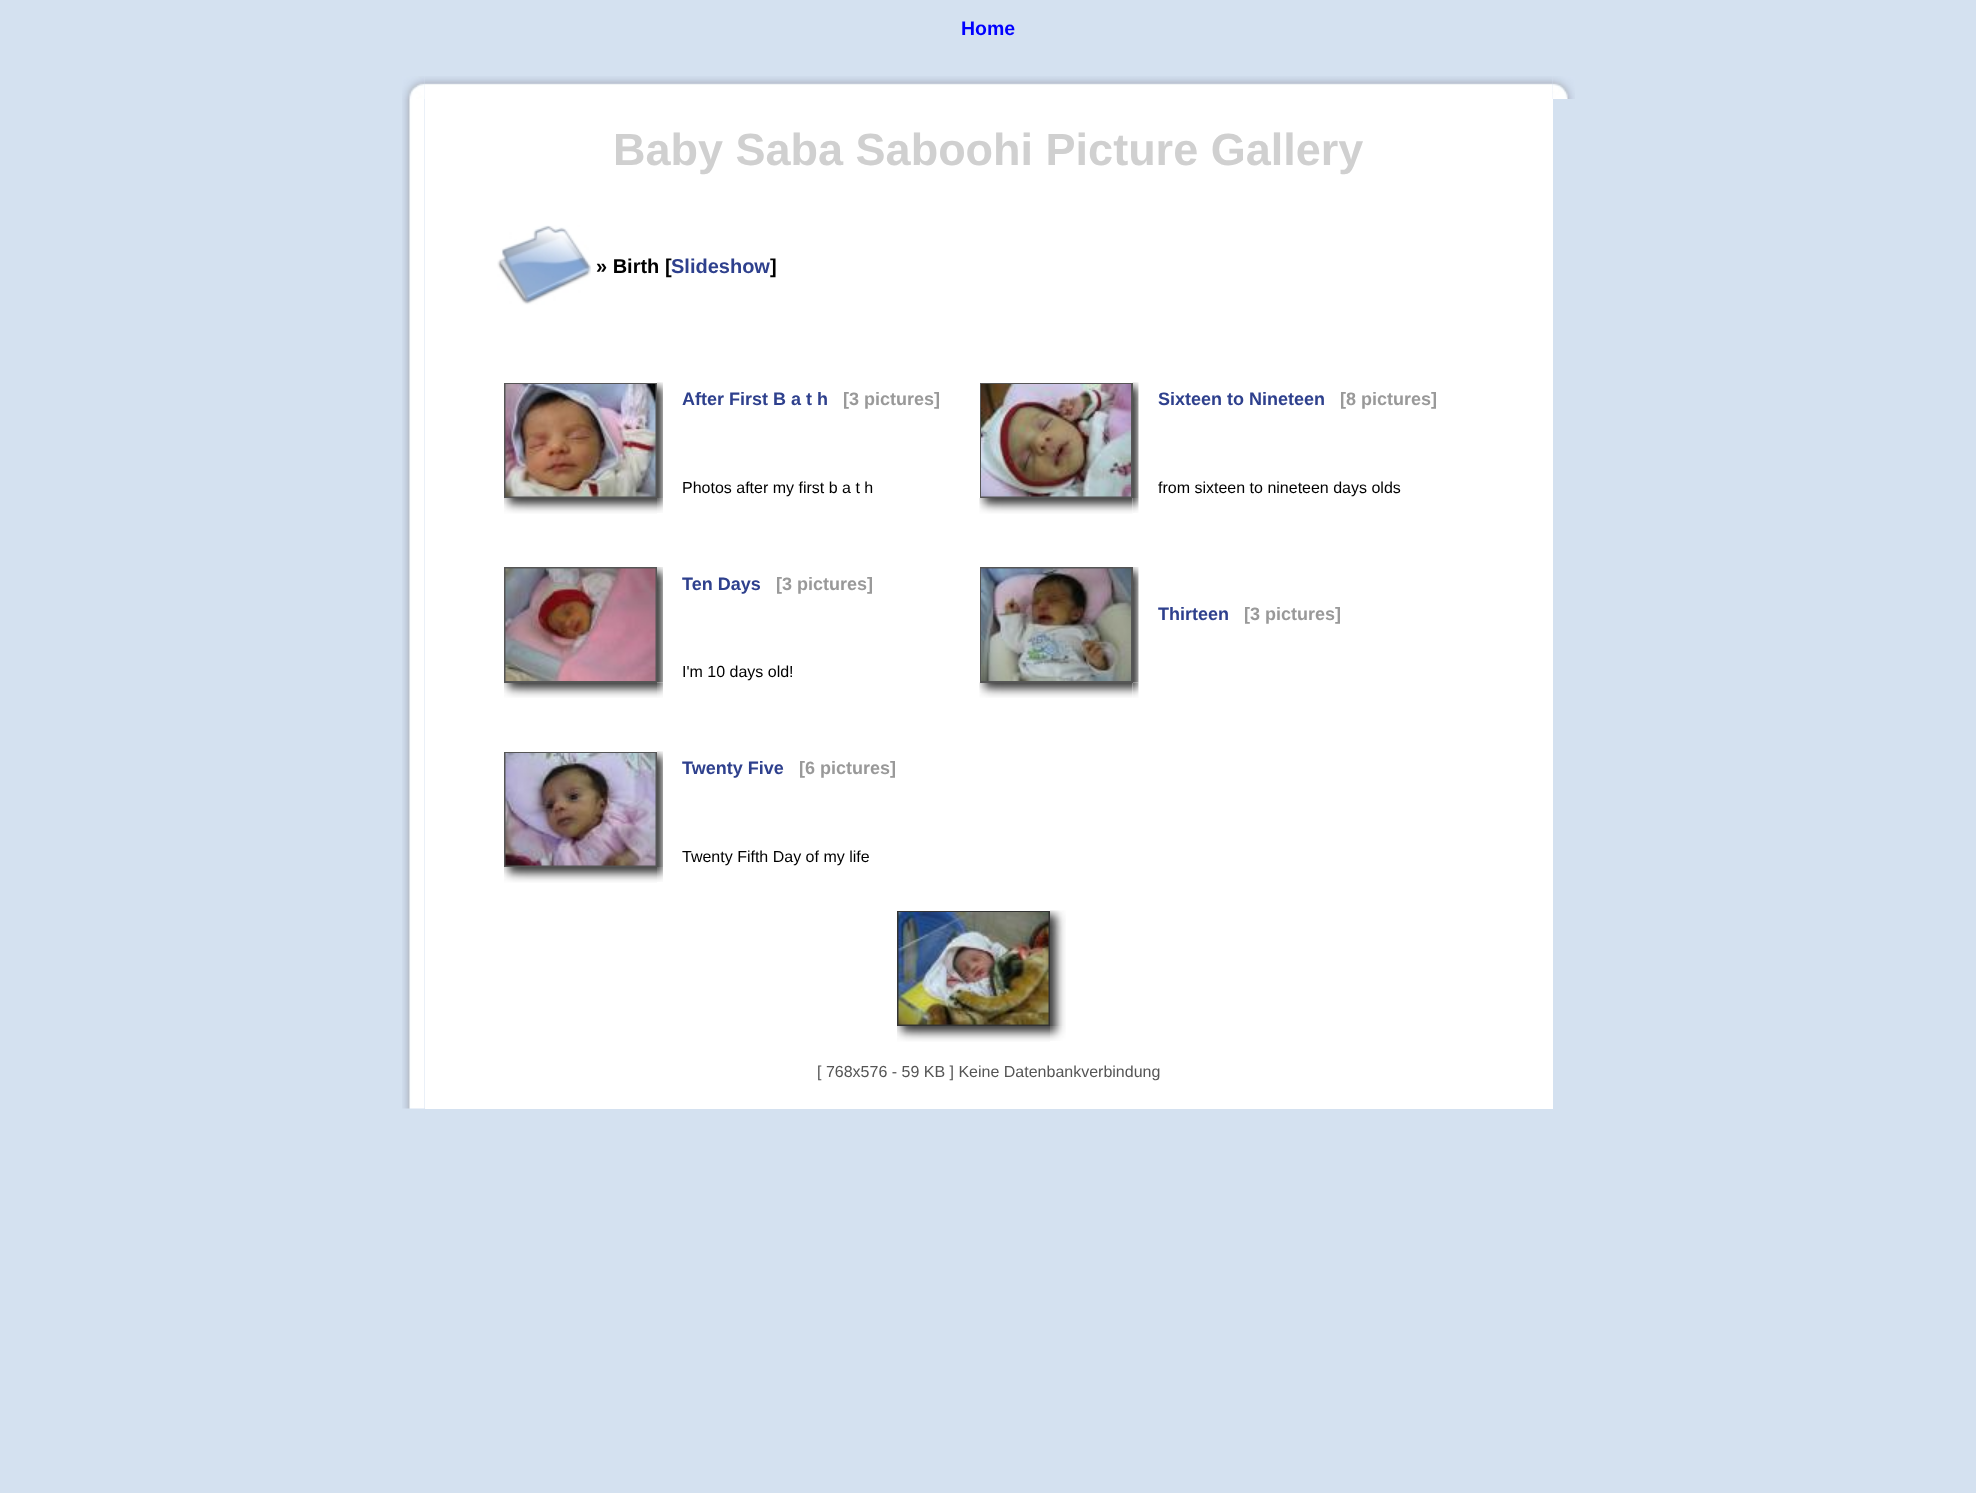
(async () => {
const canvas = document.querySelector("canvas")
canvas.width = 1976
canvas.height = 1493
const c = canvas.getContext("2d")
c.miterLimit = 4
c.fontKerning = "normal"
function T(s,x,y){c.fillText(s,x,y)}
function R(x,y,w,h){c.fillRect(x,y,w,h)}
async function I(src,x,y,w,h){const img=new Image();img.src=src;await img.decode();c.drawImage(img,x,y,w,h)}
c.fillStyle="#d4e1f0"
R(0,0,1976,1493)
c.font="bold 19.5px Liberation Sans"
c.fillStyle="#00f"
T("Home",961,35)
await I("1.png",402,76,23,23)
await I("2.png",424,76,1129,23)
await I("3.png",1552,76,23,23)
await I("4.png",402,99,23,1010)
c.fillStyle="#fff"
R(425,99,1128,1010)
c.font="bold 45px Liberation Sans"
c.fillStyle="#d0d0d0"
T("Baby Saba Saboohi Picture Gallery",613,165)
await I("5.png",497,225,94,80)
c.font="bold 20px Liberation Sans"
c.fillStyle="#000"
T("» Birth [",596,273)
c.fillStyle="#2e408d"
T("Slideshow",671,273)
c.fillStyle="#000"
T("]",770,273)
c.strokeStyle="#555"
c.lineWidth=2
c.strokeRect(505,384,151,113)
await I("6.png",505,384,151,113)
await I("7.png",657,382,6,116)
await I("8.png",504,498,153,16)
await I("9.png",657,498,6,15)
c.font="bold 18px Liberation Sans"
c.fillStyle="#2e408d"
T("After First B a t h",682,405)
c.fillStyle="#999"
T("[3 pictures]",843,405)
c.font="16px Liberation Sans"
c.fillStyle="#000"
T("Photos after my first b a t h",682,493)
await I("11.png",1132,382,7,116)
c.strokeRect(981,384,151,113)
await I("10.png",981,384,150,113)
await I("12.png",979,498,154,16)
await I("13.png",1132,498,7,15)
c.font="bold 18px Liberation Sans"
c.fillStyle="#2e408d"
T("Sixteen to Nineteen",1158,405)
c.fillStyle="#999"
T("[8 pictures]",1340,405)
c.font="16px Liberation Sans"
c.fillStyle="#000"
T("from sixteen to nineteen days olds",1158,493)
c.strokeRect(505,568,151,114)
await I("14.png",505,568,151,113)
await I("15.png",657,567,6,116)
await I("16.png",504,683,153,15)
await I("17.png",657,682,6,16)
c.font="bold 18px Liberation Sans"
c.fillStyle="#2e408d"
T("Ten Days",682,590)
c.fillStyle="#999"
T("[3 pictures]",776,590)
c.font="16px Liberation Sans"
c.fillStyle="#000"
T("I'm 10 days old!",682,677)
await I("20.png",979,682,154,16)
await I("19.png",1133,567,6,116)
await I("21.png",1132,682,7,16)
c.strokeRect(981,568,151,114)
await I("18.png",981,568,150,113)
c.font="bold 18px Liberation Sans"
c.fillStyle="#2e408d"
T("Thirteen",1158,620)
c.fillStyle="#999"
T("[3 pictures]",1244,620)
c.strokeRect(505,753,151,113)
await I("22.png",505,753,151,113)
await I("7.png",657,751,6,116)
await I("8.png",504,867,153,16)
await I("9.png",657,867,6,15)
c.fillStyle="#2e408d"
T("Twenty Five",682,774)
c.fillStyle="#999"
T("[6 pictures]",799,774)
c.font="16px Liberation Sans"
c.fillStyle="#000"
T("Twenty Fifth Day of my life",682,862)
c.strokeStyle="#333"
c.strokeRect(898,912,151,113)
await I("23.png",898,912,151,113)
await I("24.png",1050,910,16,116)
await I("25.png",897,1026,153,16)
await I("26.png",1050,1026,16,15)
c.fillStyle="#555"
T("[ 768x576 - 59 KB ] Keine Datenbankverbindung",817,1077)
})()
